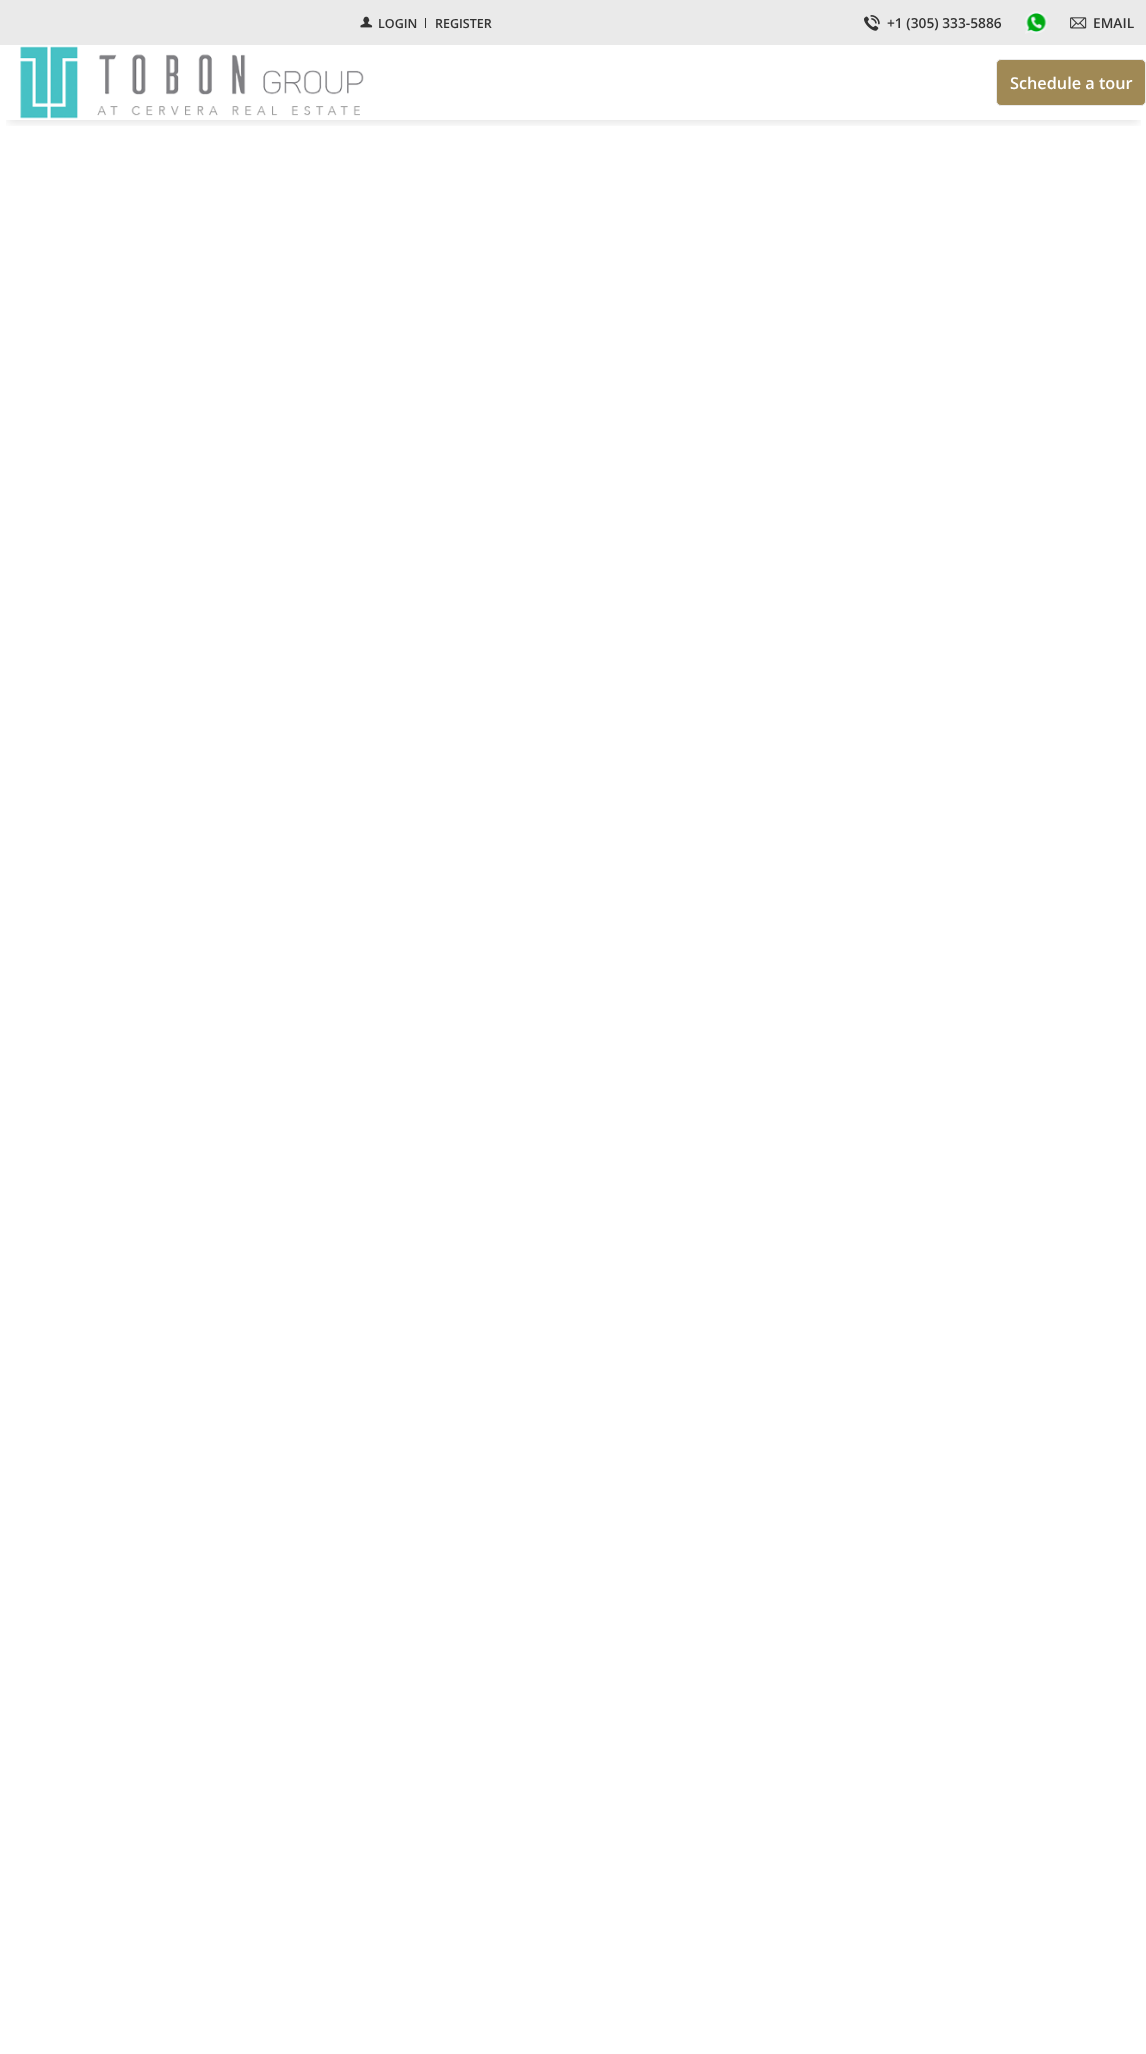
(async () => {
const canvas = document.querySelector("canvas")
canvas.width = 1146
canvas.height = 2054
const c = canvas.getContext("2d")
c.miterLimit = 4
c.fontKerning = "normal"
function T(s,x,y){c.fillText(s,x,y)}
function R(x,y,w,h){c.fillRect(x,y,w,h)}
async function I(src,x,y,w,h){const img=new Image();img.src=src;await img.decode();c.drawImage(img,x,y,w,h)}
c.fillStyle="#fff"
R(0,0,1146,2054)
c.save()
c.beginPath()
c.rect(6,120,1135,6)
c.clip()
c.fillStyle="#0000001a"
c.filter="blur(4px)"
c.beginPath()
c.rect(8,18,1131,105)
c.fill()
c.filter="none"
c.restore()
c.fillStyle="#eaeaea"
R(0,0,1146,45)
await I("1.png",360,16,13,12)
c.font="600 12.5px Open Sans"
c.fillStyle="#333"
T("LOGIN",378,28)
R(425,18,1,10)
T("REGISTER",435,28)
await I("2.png",864,15,16,16)
c.font="600 13.75px Open Sans"
T("+1 (305) 333-5886",887,28)
await I("3.png",1025,11,23,23)
await I("4.png",1070,17,17,12)
T("EMAIL",1093,28)
await I("5.png",20,46,344,73)
c.fillStyle="#a08955"
c.beginPath()
c.roundRect(996.5,59.5,149,46,4.5)
c.fill()
c.strokeStyle="#eaeaea"
c.stroke()
c.font="600 16.25px Open Sans"
c.fillStyle="#fff"
T("Schedule a tour",1010,89)
})()
